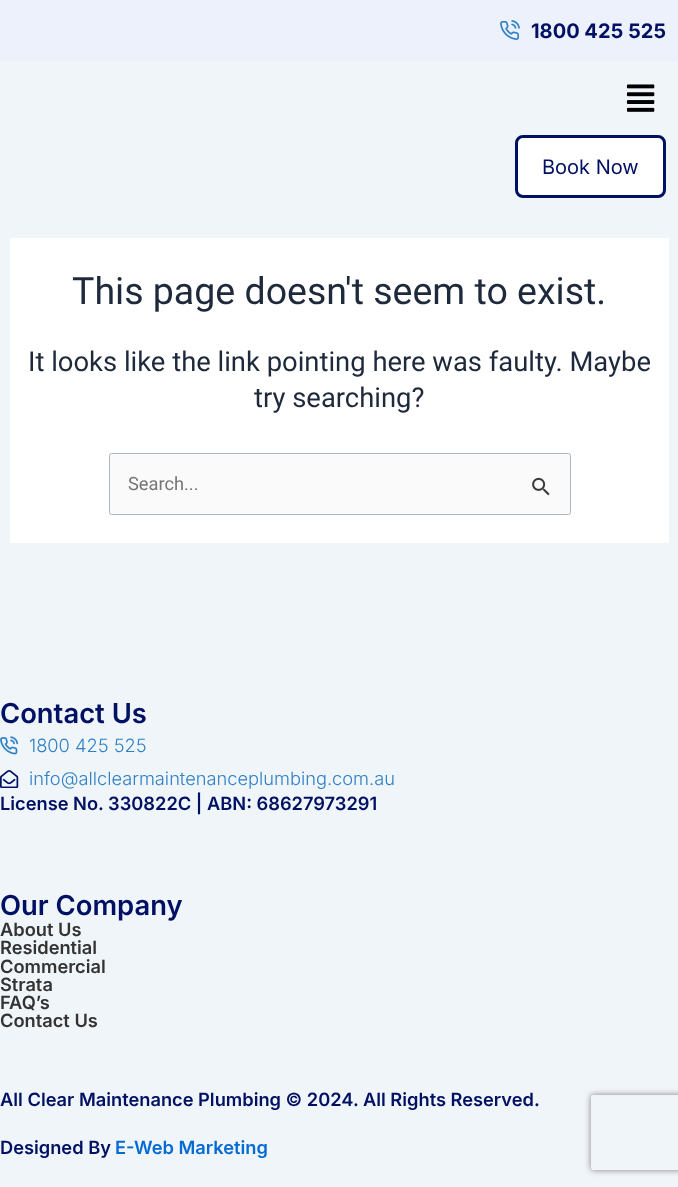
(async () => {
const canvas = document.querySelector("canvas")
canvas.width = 678
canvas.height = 1187
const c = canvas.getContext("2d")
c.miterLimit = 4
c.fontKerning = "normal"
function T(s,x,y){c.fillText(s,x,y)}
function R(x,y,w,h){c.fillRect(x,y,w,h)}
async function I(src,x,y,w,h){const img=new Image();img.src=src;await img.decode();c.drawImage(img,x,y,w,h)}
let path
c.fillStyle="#f0f5fa"
R(0,0,678,1187)
c.fillStyle="#edf1fc"
R(0,0,678,61)
await I("1.png",500,20,20,20)
c.font="bold 20px Inter"
c.fillStyle="#001062"
T("1800 425 525",531,38)
await I("2.png",626,84,29,28)
c.fillStyle="#fff"
c.beginPath()
c.roundRect(516.5,136.5,148,60,6.5)
c.fill()
c.strokeStyle="#001062"
c.lineWidth=3
c.stroke()
c.font="20px Inter"
c.fillStyle="#001062"
T("Book Now",542,174)
c.fillStyle="#fff"
R(10,238,659,305)
c.font="37.5px Roboto"
c.fillStyle="#1e293b"
T("This page doesn't seem to exist.",72,304)
c.font="27.4px Roboto"
T("It looks like the link pointing here was faulty. Maybe",28,371)
T("try searching?",254,407)
c.fillStyle="#fafafa"
c.beginPath()
c.roundRect(109.5,453.5,461,61,2)
c.fill()
c.strokeStyle="#adb6be"
c.lineWidth=1
c.stroke()
c.font="18.25px Roboto"
c.fillStyle="#757575"
T("Search...",128,490)
await I("3.png",532,477,18,19)
c.font="600 27.4px Inter"
c.fillStyle="#001062"
T("Contact Us",0,723)
await I("4.png",0,736,19,19)
c.font="300 18.25px Inter"
c.fillStyle="#2f81c4"
T("1800 425 525",29,752)
await I("5.png",0,770,19,18)
T("info@allclearmaintenanceplumbing.com.au",29,785)
c.font="600 18.25px Inter"
c.fillStyle="#001062"
T("License No. 330822C | ABN: 68627973291",0,810)
c.font="600 27.4px Inter"
T("Our Company",0,915)
c.font="600 18.25px Inter"
c.fillStyle="#333"
T("About Us",0,936)
T("Residential",0,954)
T("Commercial",0,973)
T("Strata",0,991)
T("FAQ’s",0,1009)
T("Contact Us",0,1027)
c.fillStyle="#001062"
T("All Clear Maintenance Plumbing © 2024. All Rights Reserved.",0,1106)
T("Designed By",0,1154)
c.fillStyle="#046bd2"
T("E-Web Marketing",115,1154)
c.save()
path = new Path2D("M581 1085h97v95h-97zm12.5 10h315c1.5 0 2.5 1 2.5 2.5v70c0 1.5-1 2.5-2.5 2.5h-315c-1.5 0-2.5-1-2.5-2.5v-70c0-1.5 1-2.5 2.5-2.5z")
c.clip(path,"evenodd")
c.fillStyle="#808080"
c.filter="blur(3px)"
c.beginPath()
c.roundRect(591,1095,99,75,2.5)
c.fill()
c.filter="none"
c.restore()
})()
